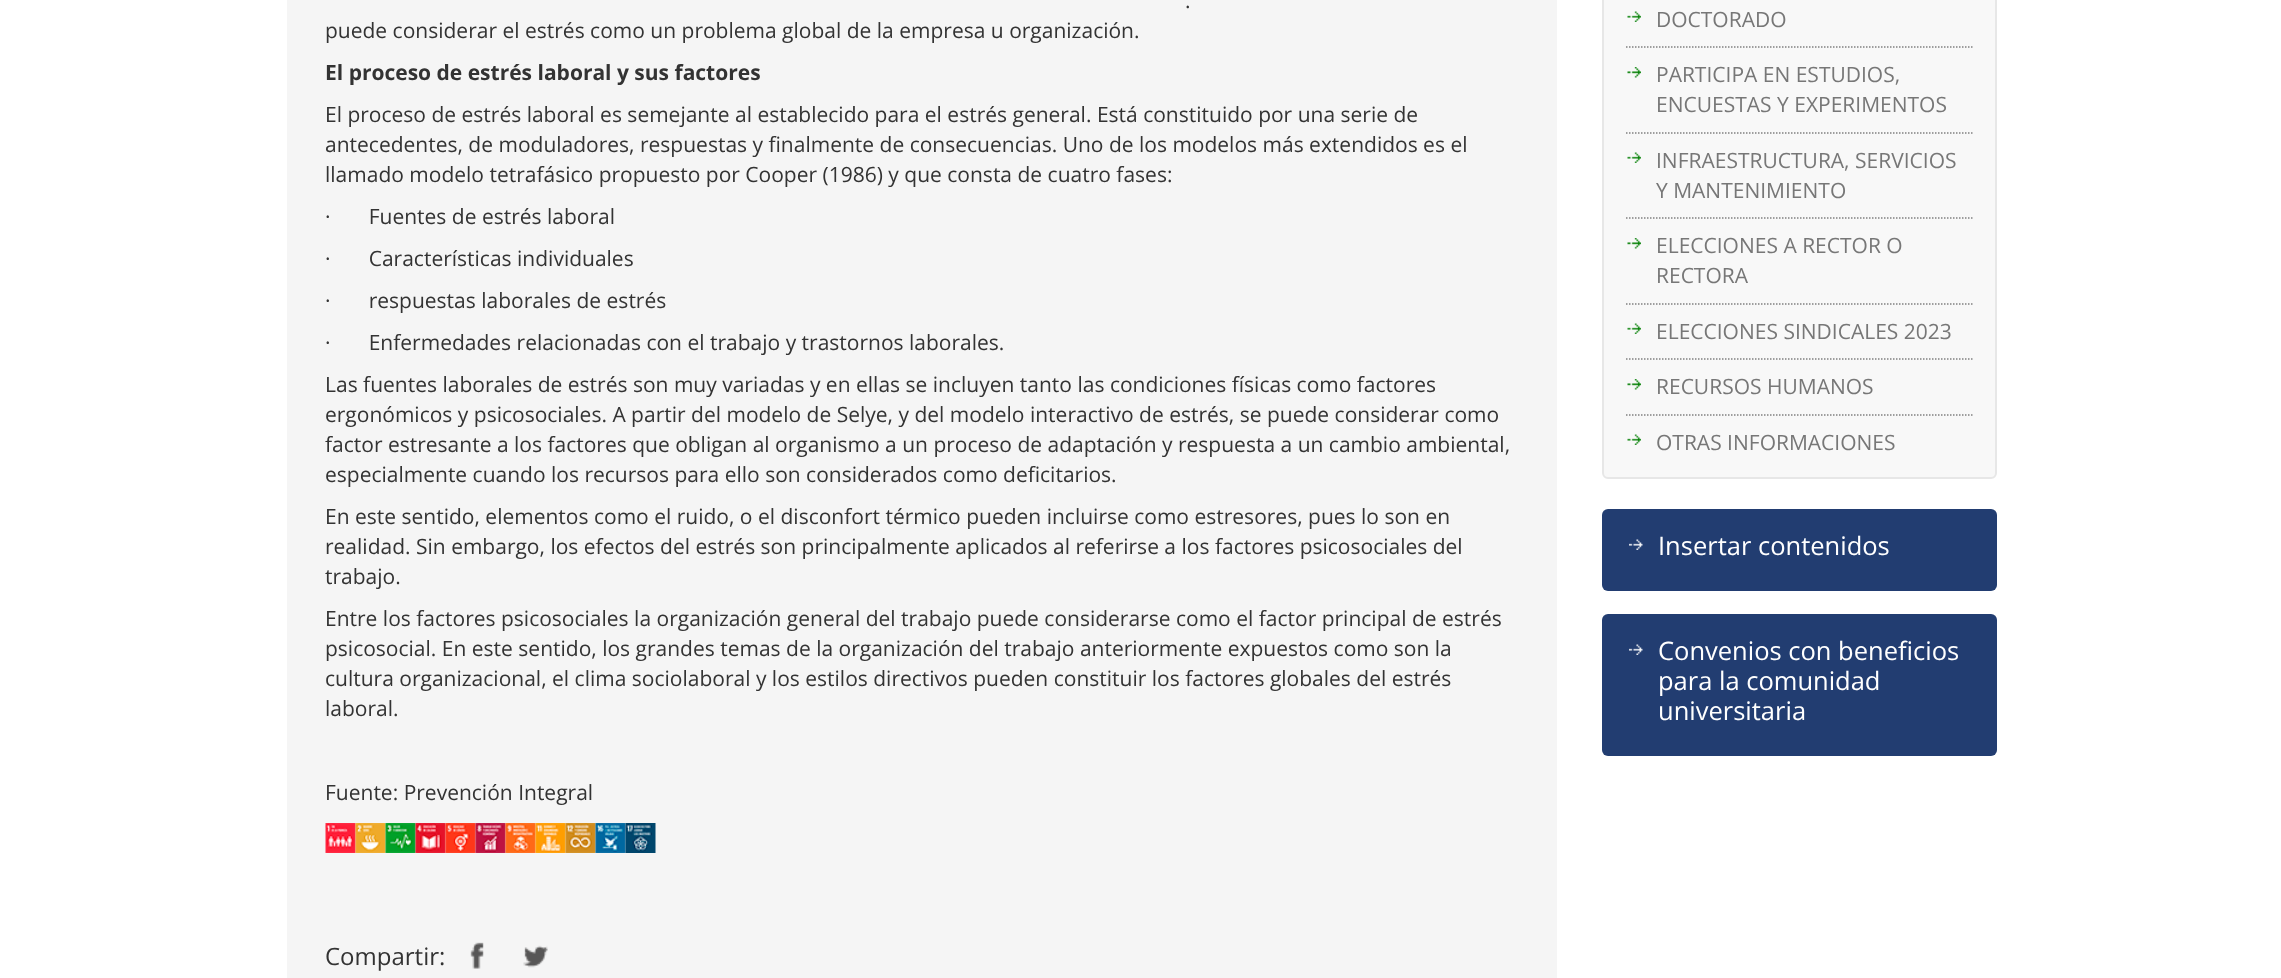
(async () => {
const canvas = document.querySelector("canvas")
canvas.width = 2281
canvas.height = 978
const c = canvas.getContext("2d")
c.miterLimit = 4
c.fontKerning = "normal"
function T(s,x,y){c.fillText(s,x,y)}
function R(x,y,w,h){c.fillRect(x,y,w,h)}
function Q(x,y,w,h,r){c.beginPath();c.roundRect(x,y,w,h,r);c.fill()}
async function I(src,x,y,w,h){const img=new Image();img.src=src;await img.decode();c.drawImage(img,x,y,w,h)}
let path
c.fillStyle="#fff"
R(0,0,2281,978)
c.fillStyle="#f5f5f5"
R(287,0,1270,978)
c.font="21px Open Sans"
c.fillStyle="#333"
T(".",1185,8)
T("puede considerar el estrés como un problema global de la empresa u organización.",325,38)
c.font="bold 21px Open Sans"
T("El proceso de estrés laboral y sus factores",325,80)
c.font="21px Open Sans"
T("El proceso de estrés laboral es semejante al establecido para el estrés general. Está constituido por una serie de",325,122)
T("antecedentes, de moduladores, respuestas y finalmente de consecuencias. Uno de los modelos más extendidos es el",325,152)
T("llamado modelo tetrafásico propuesto por Cooper (1986) y que consta de cuatro fases:",325,182)
T("·       Fuentes de estrés laboral",325,224)
T("·       Características individuales",325,266)
T("·       respuestas laborales de estrés",325,308)
T("·       Enfermedades relacionadas con el trabajo y trastornos laborales.",325,350)
T("Las fuentes laborales de estrés son muy variadas y en ellas se incluyen tanto las condiciones físicas como factores",325,392)
T("ergonómicos y psicosociales. A partir del modelo de Selye, y del modelo interactivo de estrés, se puede considerar como",325,422)
T("factor estresante a los factores que obligan al organismo a un proceso de adaptación y respuesta a un cambio ambiental,",325,452)
T("especialmente cuando los recursos para ello son considerados como deficitarios.",325,482)
T("En este sentido, elementos como el ruido, o el disconfort térmico pueden incluirse como estresores, pues lo son en",325,524)
T("realidad. Sin embargo, los efectos del estrés son principalmente aplicados al referirse a los factores psicosociales del",325,554)
T("trabajo.",325,584)
T("Entre los factores psicosociales la organización general del trabajo puede considerarse como el factor principal de estrés",325,626)
T("psicosocial. En este sentido, los grandes temas de la organización del trabajo anteriormente expuestos como son la",325,656)
T("cultura organizacional, el clima sociolaboral y los estilos directivos pueden constituir los factores globales del estrés",325,686)
T("laboral.",325,716)
T("Fuente: Prevención Integral",325,800)
await I("1.png",325,823,31,30)
await I("2.png",355,823,31,30)
await I("3.png",385,823,31,30)
await I("4.png",415,823,31,30)
await I("5.png",445,823,31,30)
await I("6.png",475,823,31,30)
await I("7.png",505,823,31,30)
await I("8.png",535,823,31,30)
await I("9.png",565,823,31,30)
await I("10.png",595,823,31,30)
await I("11.png",625,823,31,30)
c.font="24px Open Sans"
T("Compartir:",325,965)
await I("12.png",470,942,14,27)
await I("13.png",523,945,25,23)
c.fillStyle="#f8f8f8"
c.beginPath()
c.roundRect(1603,-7,393,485,5)
c.fill()
c.strokeStyle="#e7e7e7"
c.lineWidth=2
c.stroke()
await I("14.png",1627,11,14,11)
path = new Path2D("M1626 47h346.5")
c.strokeStyle="#808080"
c.lineWidth=1.5
c.setLineDash([1.5,1.5])
c.stroke(path)
c.font="21px Open Sans"
c.fillStyle="#777"
T("DOCTORADO",1656,27)
await I("15.png",1627,67,14,11)
path = new Path2D("M1626 133h346.5")
c.stroke(path)
T("PARTICIPA EN ESTUDIOS,",1656,82)
T("ENCUESTAS Y EXPERIMENTOS",1656,112)
await I("14.png",1627,152,14,11)
path = new Path2D("M1626 218h346.5")
c.stroke(path)
T("INFRAESTRUCTURA, SERVICIOS",1656,168)
T("Y MANTENIMIENTO",1656,198)
await I("15.png",1627,238,14,11)
path = new Path2D("M1626 304h346.5")
c.stroke(path)
T("ELECCIONES A RECTOR O",1656,253)
T("RECTORA",1656,283)
await I("14.png",1627,323,14,11)
path = new Path2D("M1626 359h346.5")
c.stroke(path)
T("ELECCIONES SINDICALES 2023",1656,339)
await I("15.png",1627,379,14,11)
path = new Path2D("M1626 415h346.5")
c.stroke(path)
T("RECURSOS HUMANOS",1656,394)
await I("14.png",1627,434,14,11)
T("OTRAS INFORMACIONES",1656,450)
c.fillStyle="#223d71"
Q(1602,509,395,82,6)
await I("16.png",1629,539,14,11)
c.font="25.5px Open Sans"
c.fillStyle="#fff"
T("Insertar contenidos",1658,555)
c.fillStyle="#223d71"
Q(1602,614,395,142,6)
await I("16.png",1629,644,14,11)
c.fillStyle="#fff"
T("Convenios con beneficios",1658,660)
T("para la comunidad",1658,690)
T("universitaria",1658,720)
})()
